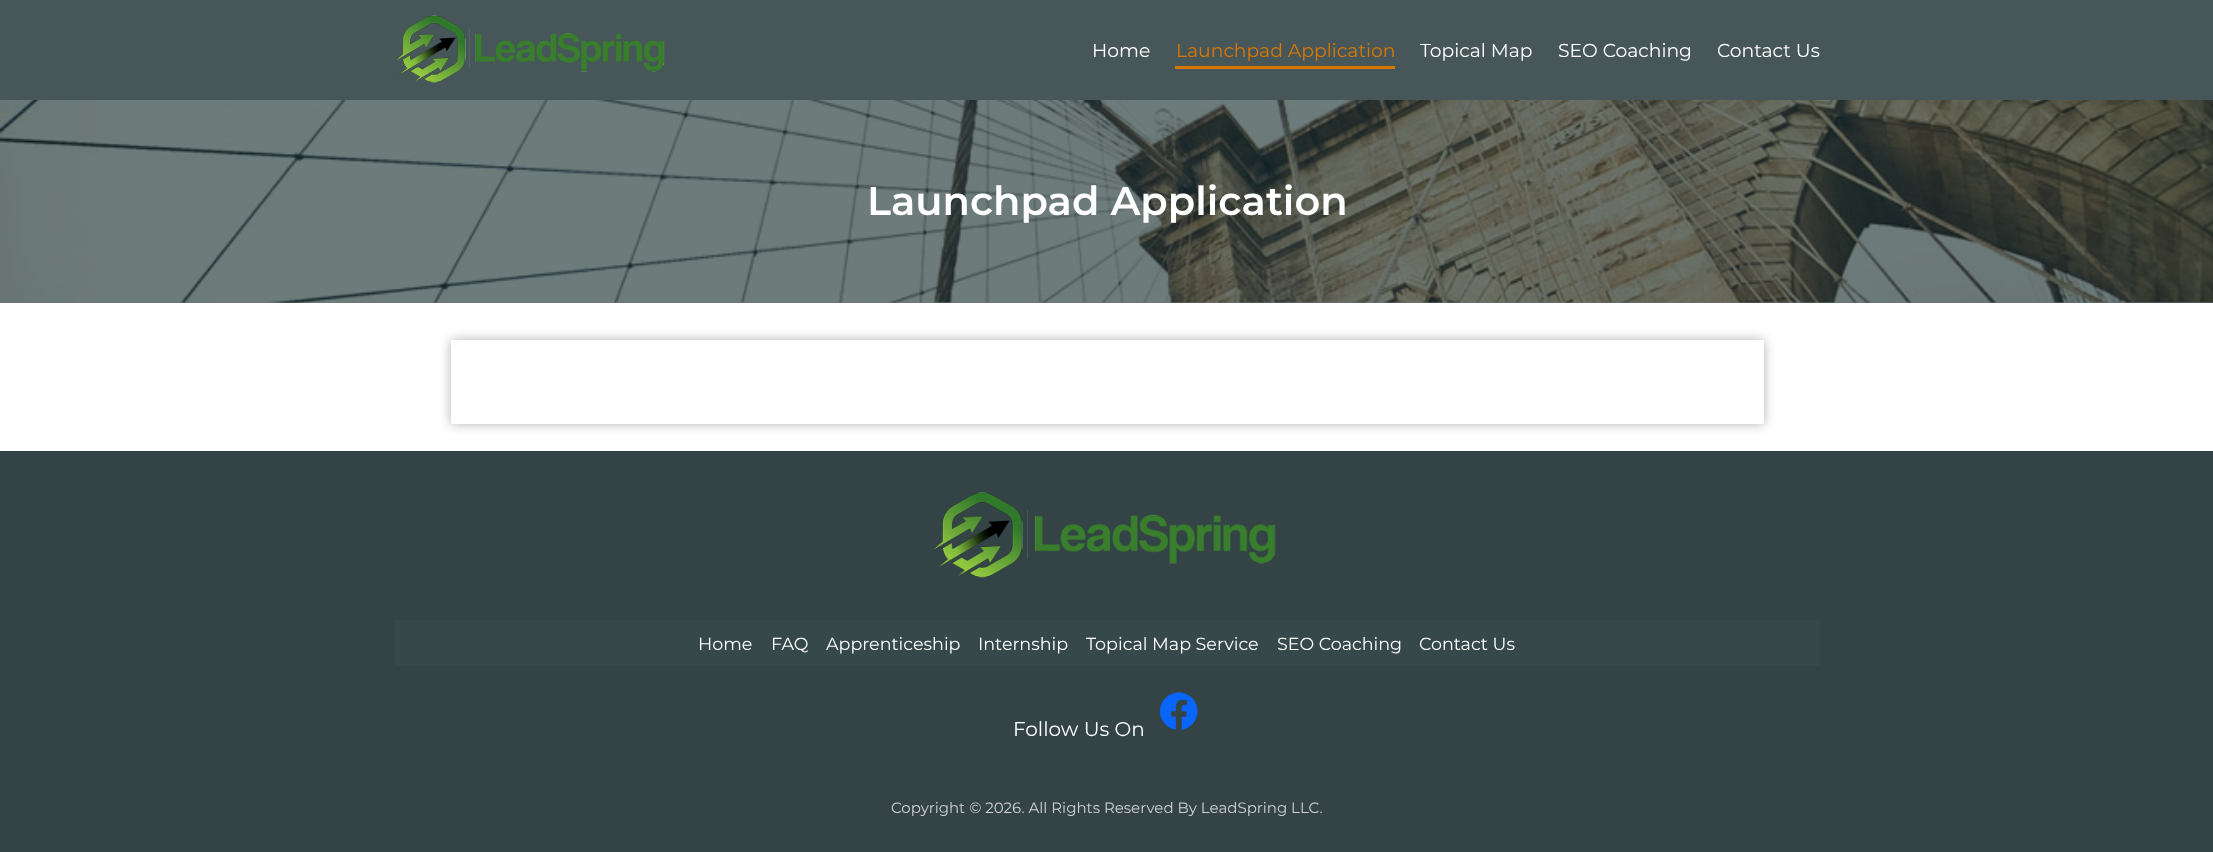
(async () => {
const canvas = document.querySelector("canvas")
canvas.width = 2213
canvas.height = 852
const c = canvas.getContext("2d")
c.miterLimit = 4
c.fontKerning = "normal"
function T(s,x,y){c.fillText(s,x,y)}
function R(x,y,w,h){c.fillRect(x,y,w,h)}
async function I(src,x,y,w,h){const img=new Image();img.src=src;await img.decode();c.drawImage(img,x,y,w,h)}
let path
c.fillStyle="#fff"
R(0,0,2213,852)
c.fillStyle="#475659"
R(0,0,2213,100)
await I("1.png",395,15,270,68)
c.font="18.75px Montserrat"
c.fillStyle="#fff"
T("Home",1092,57)
c.fillStyle="#db7800"
T("Launchpad Application",1176,57)
R(1175,66,220,3)
c.fillStyle="#fff"
T("Topical Map",1420,57)
T("SEO Coaching",1558,57)
T("Contact Us",1717,57)
c.fillStyle="#697777"
R(0,302,2213,1)
await I("2.png",0,100,2213,203)
c.font="600 40px Montserrat"
c.fillStyle="#fff"
T("Launchpad Application",867,215)
c.save()
path = new Path2D("M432 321h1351v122h-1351zm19 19h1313v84h-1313z")
c.clip(path,"evenodd")
c.fillStyle="#0000004d"
c.filter="blur(6px)"
c.beginPath()
c.rect(451,340,1313,84)
c.fill()
c.filter="none"
c.restore()
c.fillStyle="#334346"
R(0,451,2213,401)
await I("3.png",933,492,343,86)
c.fillStyle="#37484a"
R(395,620,1425,46)
c.font="17.5px Montserrat"
c.fillStyle="#fff"
T("Home",698,650)
T("FAQ",771,650)
T("Apprenticeship",826,650)
T("Internship",978,650)
T("Topical Map Service",1086,650)
T("SEO Coaching",1277,650)
T("Contact Us",1419,650)
c.font="20px Montserrat"
T("Follow Us On",1013,736)
await I("4.png",1160,692,38,38)
c.font="15px Montserrat"
c.fillStyle="#d1d1d1"
T("Copyright © 2026. All Rights Reserved By LeadSpring LLC.",891,813)
})()
